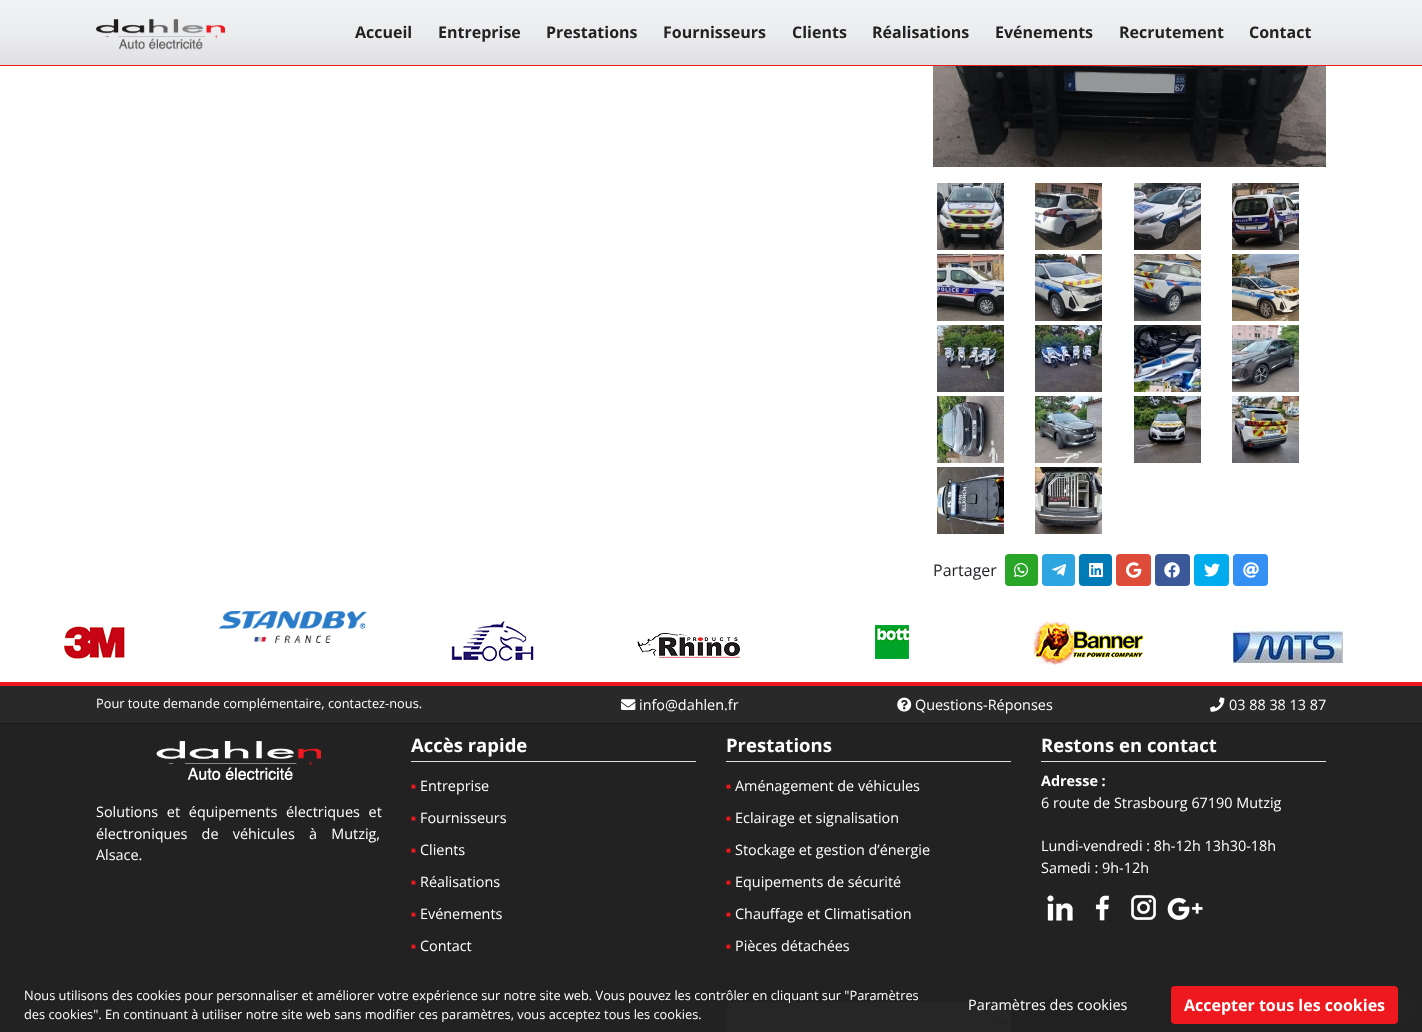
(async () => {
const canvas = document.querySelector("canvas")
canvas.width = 1422
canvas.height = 1032
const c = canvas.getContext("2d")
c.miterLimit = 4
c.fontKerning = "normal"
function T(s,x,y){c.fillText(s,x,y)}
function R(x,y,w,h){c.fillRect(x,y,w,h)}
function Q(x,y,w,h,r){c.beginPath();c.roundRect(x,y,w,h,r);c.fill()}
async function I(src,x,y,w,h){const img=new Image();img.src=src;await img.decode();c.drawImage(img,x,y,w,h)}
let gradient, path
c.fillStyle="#fff"
R(0,0,1422,1032)
gradient = c.createLinearGradient(711,0,711,65)
gradient.addColorStop(0,"#f1f2f4")
gradient.addColorStop(.54,"#ebecee")
gradient.addColorStop(1,"#e0e0e2")
c.fillStyle = gradient
R(0,0,1422,65)
c.fillStyle="#ee191f"
R(0,65,1422,1)
await I("1.png",96,19,129,31)
c.font="bold 16px Open Sans"
c.fillStyle="#222"
T("Accueil",355,38)
T("Entreprise",438,38)
T("Prestations",546,38)
T("Fournisseurs",663,38)
T("Clients",792,38)
T("Réalisations",872,38)
T("Evénements",995,38)
T("Recrutement",1119,38)
T("Contact",1249,38)
await I("2.png",933,66,393,101)
await I("3.png",937,183,67,67)
await I("4.png",1035,183,67,67)
await I("5.png",1134,183,67,67)
await I("6.png",1232,183,67,67)
await I("7.png",937,254,67,67)
await I("8.png",1035,254,67,67)
await I("9.png",1134,254,67,67)
await I("10.png",1232,254,67,67)
await I("11.png",937,325,67,67)
await I("12.png",1035,325,67,67)
await I("13.png",1134,325,67,67)
await I("14.png",1232,325,67,67)
await I("15.png",937,396,67,67)
await I("16.png",1035,396,67,67)
await I("17.png",1134,396,67,67)
await I("18.png",1232,396,67,67)
await I("19.png",937,467,67,67)
await I("20.png",1035,467,67,67)
c.font="16px Open Sans"
c.fillStyle="#212529"
T("Partager",933,576)
c.fillStyle="#29a628"
Q(1005,554,33,32,4)
await I("21.png",1014,563,14,14)
c.fillStyle="#2ca5e0"
Q(1042,554,33,32,4)
await I("22.png",1052,564,14,12)
c.fillStyle="#007bb6"
Q(1079,554,33,32,4)
await I("23.png",1089,563,14,14)
c.fillStyle="#dd4b39"
Q(1116,554,35,32,4)
await I("24.png",1126,562,16,16)
c.fillStyle="#3b5998"
Q(1155,554,35,32,4)
await I("25.png",1164,562,16,16)
c.fillStyle="#00aced"
Q(1194,554,35,32,4)
await I("26.png",1204,563,16,14)
c.fillStyle="#3490f3"
Q(1233,554,35,32,4)
await I("27.png",1243,562,16,16)
await I("28.png",64,626,62,33)
await I("29.png",219,611,148,32)
await I("30.png",451,620,83,42)
await I("31.png",637,633,103,25)
await I("32.png",875,625,34,34)
await I("33.png",1032,621,112,44)
await I("34.png",1232,626,113,40)
c.fillStyle="#ee191f"
R(0,682,1422,4)
c.fillStyle="#292929"
R(0,686,1422,37)
c.fillStyle="#171717"
R(0,723,1422,1)
c.font="12.8px Open Sans"
c.fillStyle="#fff"
T("Pour toute demande complémentaire, contactez-nous.",96,708)
await I("35.png",621,699,15,11)
c.font="14.4px Open Sans"
T("info@dahlen.fr",639,710)
await I("36.png",897,697,15,15)
T("Questions-Réponses",915,710)
await I("37.png",1210,697,15,15)
T("03 88 38 13 87",1229,710)
c.fillStyle="#222"
R(0,724,1422,308)
await I("38.png",156,741,165,39)
c.wordSpacing="5px"
c.fillStyle="#fff"
T("Solutions et équipements électriques et",96,817)
c.wordSpacing="10.5px"
T("électroniques de véhicules à Mutzig,",96,839)
c.wordSpacing="0px"
T("Alsace.",96,860)
c.fillStyle="#dee2e6"
R(411,761,285,1)
c.font="bold 18.5px Open Sans"
c.fillStyle="#fff"
T("Accès rapide",411,752)
c.font="8px Liberation Serif"
c.fillStyle="#ee191f"
T("■",411,789)
c.font="14.4px Open Sans"
c.fillStyle="#fff"
T("Entreprise",420,791)
c.font="8px Liberation Serif"
c.fillStyle="#ee191f"
T("■",411,821)
c.font="14.4px Open Sans"
c.fillStyle="#fff"
T("Fournisseurs",420,823)
c.font="8px Liberation Serif"
c.fillStyle="#ee191f"
T("■",411,853)
c.font="14.4px Open Sans"
c.fillStyle="#fff"
T("Clients",420,855)
c.font="8px Liberation Serif"
c.fillStyle="#ee191f"
T("■",411,885)
c.font="14.4px Open Sans"
c.fillStyle="#fff"
T("Réalisations",420,887)
c.font="8px Liberation Serif"
c.fillStyle="#ee191f"
T("■",411,917)
c.font="14.4px Open Sans"
c.fillStyle="#fff"
T("Evénements",420,919)
c.font="8px Liberation Serif"
c.fillStyle="#ee191f"
T("■",411,949)
c.font="14.4px Open Sans"
c.fillStyle="#fff"
T("Contact",420,951)
c.fillStyle="#dee2e6"
R(726,761,285,1)
c.font="bold 18.5px Open Sans"
c.fillStyle="#fff"
T("Prestations",726,752)
c.font="8px Liberation Serif"
c.fillStyle="#ee191f"
T("■",726,789)
c.font="14.4px Open Sans"
c.fillStyle="#fff"
T("Aménagement de véhicules",735,791)
c.font="8px Liberation Serif"
c.fillStyle="#ee191f"
T("■",726,821)
c.font="14.4px Open Sans"
c.fillStyle="#fff"
T("Eclairage et signalisation",735,823)
c.font="8px Liberation Serif"
c.fillStyle="#ee191f"
T("■",726,853)
c.font="14.4px Open Sans"
c.fillStyle="#fff"
T("Stockage et gestion d’énergie",735,855)
c.font="8px Liberation Serif"
c.fillStyle="#ee191f"
T("■",726,885)
c.font="14.4px Open Sans"
c.fillStyle="#fff"
T("Equipements de sécurité",735,887)
c.font="8px Liberation Serif"
c.fillStyle="#ee191f"
T("■",726,917)
c.font="14.4px Open Sans"
c.fillStyle="#fff"
T("Chauffage et Climatisation",735,919)
c.font="8px Liberation Serif"
c.fillStyle="#ee191f"
T("■",726,949)
c.font="14.4px Open Sans"
c.fillStyle="#fff"
T("Pièces détachées",735,951)
Q(727,1003,283,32,3)
c.beginPath()
c.roundRect(726.5,1002.5,284,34,3.5)
c.strokeStyle="#ced4da"
c.stroke()
path = new Path2D("M998 1019l4 4l4-4")
c.strokeStyle="#495057"
c.lineWidth=2
c.stroke(path)
c.fillStyle="#dee2e6"
R(1041,761,285,1)
c.font="bold 18.5px Open Sans"
c.fillStyle="#fff"
T("Restons en contact",1041,752)
c.font="bold 14.4px Open Sans"
T("Adresse :",1041,786)
c.font="14.4px Open Sans"
T("6 route de Strasbourg 67190 Mutzig",1041,808)
T("Lundi-vendredi : 8h-12h 13h30-18h",1041,851)
T("Samedi : 9h-12h",1041,873)
R(1047,895,26,26)
await I("39.png",1041,886,38,38)
R(1095,895,14,26)
await I("40.png",1083,886,38,38)
R(1131,895,25,25)
await I("41.png",1125,886,38,38)
R(1167,897,36,24)
await I("42.png",1166,886,38,38)
c.fillStyle="#6c757d"
c.beginPath()
c.arc(1398,1008,16,0,7)
c.fill()
await I("43.png",1398,1000,9,12)
c.fillStyle="#222222fa"
R(726,992,688,40)
c.font="12.8px Open Sans"
c.fillStyle="#fff"
T("Nous utilisons des cookies pour personnaliser et améliorer votre expérience sur notre site web. Vous pouvez les contrôler en cliquant sur \"Paramètres",24,1000)
T("des cookies\". En continuant à utiliser notre site web sans modifier ces paramètres, vous acceptez tous les cookies.",24,1019)
c.font="14.4px Open Sans"
T("Paramètres des cookies",968,1010)
c.fillStyle="#ee191f"
Q(1171,986,227,38,4)
c.font="bold 16px Open Sans"
c.fillStyle="#fff"
T("Accepter tous les cookies",1184,1011)
})()
